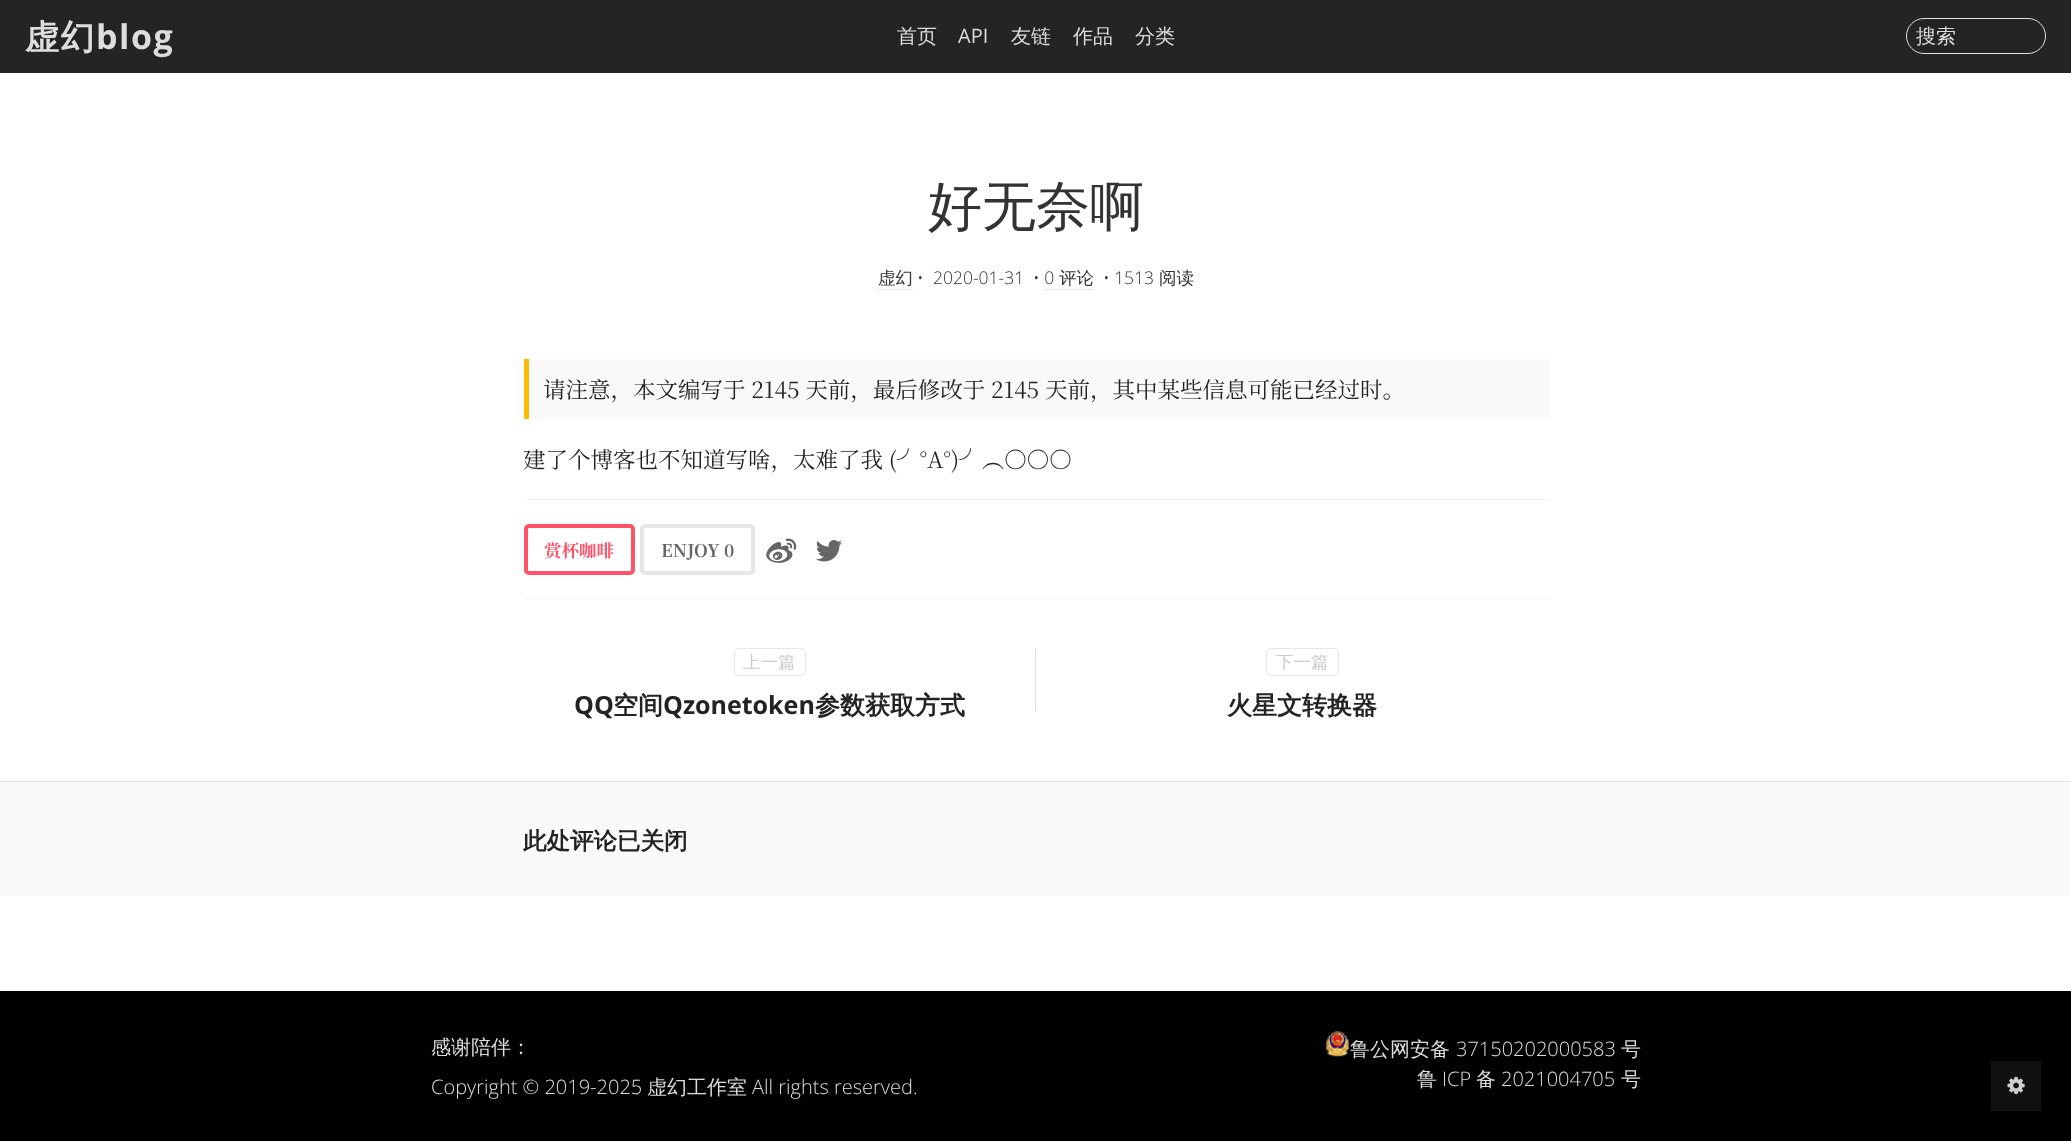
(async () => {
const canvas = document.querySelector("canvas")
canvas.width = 2071
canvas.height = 1141
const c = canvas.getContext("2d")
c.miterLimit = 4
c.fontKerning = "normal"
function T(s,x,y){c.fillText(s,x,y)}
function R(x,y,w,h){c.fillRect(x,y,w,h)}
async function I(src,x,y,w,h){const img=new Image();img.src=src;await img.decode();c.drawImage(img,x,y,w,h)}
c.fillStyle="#fff"
R(0,0,2071,1141)
c.fillStyle="#242424"
R(0,0,2071,73)
c.letterSpacing="1.5px"
c.font="bold 34px WenQuanYi Zen Hei"
c.fillStyle="#ddd"
T("虚幻",25,49)
c.font="bold 34px Open Sans"
T("blog",96,49)
c.letterSpacing="0px"
c.font="500 20px WenQuanYi Zen Hei"
T("首页",897,43)
c.font="20px Open Sans"
T("API",958,43)
c.font="500 20px WenQuanYi Zen Hei"
T("友链",1011,43)
T("作品",1073,43)
T("分类",1135,43)
c.beginPath()
c.roundRect(1906.5,18.5,139,35,17.5)
c.strokeStyle="#dfdfdf"
c.stroke()
T("搜索",1916,43)
c.font="500 54px WenQuanYi Zen Hei"
c.fillStyle="#333"
T("好无奈啊",928,225)
c.font="500 17.5px WenQuanYi Zen Hei"
T("虚幻",878,284)
c.fillStyle="#e6e6e6"
R(878,289,35,1)
c.font="300 17.5px Open Sans"
c.fillStyle="#333"
T("•",917,284)
T("2020-01-31",933,284)
T("• 0",1033,284)
c.font="500 17.5px WenQuanYi Zen Hei"
T("评论",1059,284)
c.fillStyle="#e6e6e6"
R(1044,289,50,1)
c.font="300 17.5px Open Sans"
c.fillStyle="#333"
T("• 1513",1103,284)
c.font="500 17.5px WenQuanYi Zen Hei"
T("阅读",1159,284)
c.fillStyle="#f9f9f9"
R(529,359,1020,60)
c.fillStyle="#fbbc05"
R(524,359,5,60)
c.font="22.5px Noto Serif SC"
c.fillStyle="#232323"
T("请注意，本文编写于 2145 天前，最后修改于 2145 天前，其中某些信息可能已经过时。",543,398)
T("建了个博客也不知道写啥，太难了我 (╯°A°)╯︵○○○",523,468)
c.fillStyle="#f2f2f2"
R(524,499,1025,1)
R(524,598,1025,1)
c.beginPath()
c.roundRect(526,526,107,47,3)
c.strokeStyle="#ff5268"
c.lineWidth=4
c.stroke()
c.font="bold 17.5px Noto Serif SC"
c.fillStyle="#ff5268"
T("赏杯咖啡",544,557)
c.beginPath()
c.roundRect(642,526,111,47,3)
c.strokeStyle="#e6e6e6"
c.stroke()
c.fillStyle="#666"
T("ENJOY 0",661,557)
await I("1.png",766,538,31,25)
await I("2.png",816,540,26,22)
c.beginPath()
c.roundRect(734.5,648.5,71,27,4.5)
c.lineWidth=1
c.stroke()
c.font="500 17.5px WenQuanYi Zen Hei"
c.fillStyle="#ccc"
T("上一篇",743,668)
c.fillStyle="#ddd"
R(1035,649,1,62)
c.font="bold 25px Open Sans"
c.fillStyle="#232323"
T("QQ",574,714)
c.font="bold 25px WenQuanYi Zen Hei"
T("空间",613,714)
c.font="bold 25px Open Sans"
T("Qzonetoken",663,714)
c.font="bold 25px WenQuanYi Zen Hei"
T("参数获取方式",815,714)
c.beginPath()
c.roundRect(1266.5,648.5,72,27,4.5)
c.stroke()
c.font="500 17.5px WenQuanYi Zen Hei"
c.fillStyle="#ccc"
T("下一篇",1276,668)
c.font="bold 25px WenQuanYi Zen Hei"
c.fillStyle="#232323"
T("火星文转换器",1227,714)
c.fillStyle="#fafafa"
R(0,782,2071,114)
c.fillStyle="#e1e1e1"
R(0,781,2071,1)
c.font="bold 23.5px WenQuanYi Zen Hei"
c.fillStyle="#232323"
T("此处评论已关闭",523,849)
c.fillStyle="#000"
R(0,991,2071,150)
c.font="500 20px WenQuanYi Zen Hei"
c.fillStyle="#ddd"
T("感谢陪伴：",431,1054)
c.font="300 20px Open Sans"
T("Copyright © 2019-2025",431,1094)
c.font="500 20px WenQuanYi Zen Hei"
T("虚幻工作室",647,1094)
c.font="300 20px Open Sans"
T("All rights reserved.",752,1094)
await I("3.png",1326,1031,23,26)
c.font="500 20px WenQuanYi Zen Hei"
T("鲁公网安备",1350,1056)
c.font="300 20px Open Sans"
T("37150202000583",1456,1056)
c.font="500 20px WenQuanYi Zen Hei"
T("号",1621,1056)
T("鲁",1417,1086)
c.font="300 20px Open Sans"
T("ICP",1442,1086)
c.font="500 20px WenQuanYi Zen Hei"
T("备",1476,1086)
c.font="300 20px Open Sans"
T("2021004705",1501,1086)
c.font="500 20px WenQuanYi Zen Hei"
T("号",1621,1086)
c.fillStyle="#111"
R(1991,1061,50,50)
await I("4.png",2007,1076,18,19)
})()
